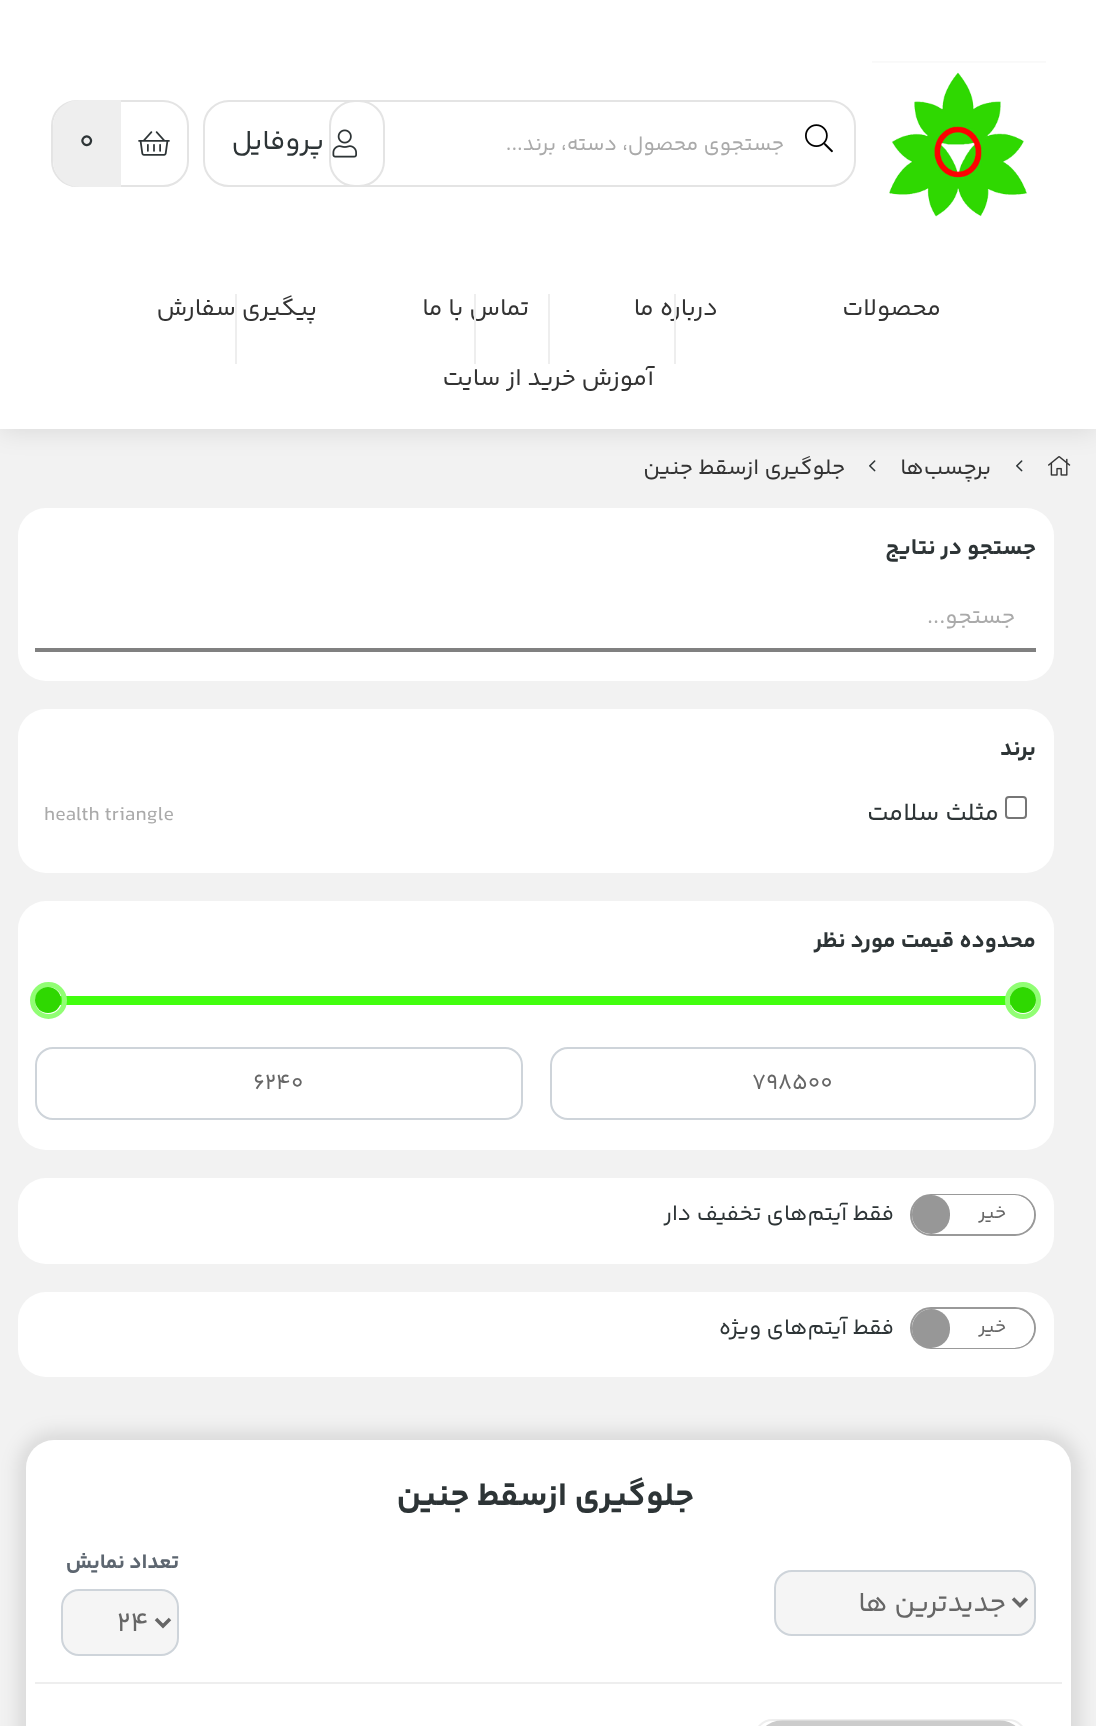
(async () => {
const canvas = document.querySelector("canvas")
canvas.width = 1096
canvas.height = 1726
const c = canvas.getContext("2d")
c.miterLimit = 4
c.fontKerning = "normal"
function T(s,x,y){c.fillText(s,x,y)}
function R(x,y,w,h){c.fillRect(x,y,w,h)}
function Q(x,y,w,h,r){c.beginPath();c.roundRect(x,y,w,h,r);c.fill()}
async function I(src,x,y,w,h){const img=new Image();img.src=src;await img.decode();c.drawImage(img,x,y,w,h)}
let path
c.fillStyle="#f2f2f2"
R(0,0,1096,1726)
c.fillStyle="#0000001a"
c.filter="blur(13px)"
c.beginPath()
c.rect(0,2,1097,429)
c.fill()
c.filter="none"
c.fillStyle="#fff"
R(0,0,1096,429)
await I("1.png",872,61,174,156)
c.beginPath()
c.roundRect(330,101,525,85,25)
c.strokeStyle="#e4e4e4"
c.lineWidth=2
c.stroke()
await I("2.png",805,124,28,29)
c.direction="rtl"
c.font="21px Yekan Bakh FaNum"
c.fillStyle="#aaa"
T("جستجوی محصول، دسته، برند...",784,150)
c.beginPath()
c.roundRect(204,101,180,85,25)
c.stroke()
await I("3.png",332,129,25,29)
c.font="28px Yekan Bakh FaNum"
c.fillStyle="#2d3436"
T("پروفایل",324,149)
c.beginPath()
c.roundRect(52,101,136,85,25)
c.stroke()
await I("4.png",138,131,32,25)
c.fillStyle="#eee"
c.beginPath()
c.roundRect(53,100,68,87,[26,0,0,26])
c.fill()
c.direction="ltr"
c.fillStyle="#2d3436"
T("0",79,149)
c.direction="rtl"
c.font="24.5px Yekan Bakh FaNum"
c.fillStyle="#333"
T("محصولات",941,315)
T("درباره ما",718,315)
c.fillStyle="#eee"
R(674,294,2,70)
c.fillStyle="#333"
T("تماس با ما",529,315)
c.fillStyle="#eee"
R(474,294,2,70)
c.fillStyle="#333"
T("پیگیری سفارش",317,315)
c.fillStyle="#eee"
R(235,294,2,70)
R(548,294,2,70)
c.fillStyle="#333"
T("آموزش خرید از سایت",654,385)
await I("5.png",1048,456,23,20)
await I("6.png",1016,460,7,12)
c.font="22.4px Yekan Bakh FaNum"
T("برچسب‌ها",991,474)
await I("6.png",869,460,7,12)
T("جلوگیری ازسقط جنین",845,474)
c.fillStyle="#fff"
Q(18,508,1036,173,28)
c.font="bold 22.75px Yekan Bakh FaNum"
c.fillStyle="#2d3436"
T("جستجو در نتایج",1036,554)
c.fillStyle="#808080"
R(35,648,1001,4)
c.font="22.75px Yekan Bakh FaNum"
c.fillStyle="#aaa"
T("جستجو...",1015,623)
c.fillStyle="#fff"
Q(18,709,1036,164,28)
c.font="bold 22.75px Yekan Bakh FaNum"
c.fillStyle="#2d3436"
T("برند",1036,755)
c.beginPath()
c.roundRect(1006,797,20,21,3)
c.strokeStyle="#767676"
c.stroke()
c.font="25.25px Yekan Bakh FaNum"
T("مثلث سلامت",999,820)
c.direction="ltr"
c.font="20.25px Yekan Bakh FaNum"
c.fillStyle="#aaa"
T("health triangle",44,820)
c.fillStyle="#fff"
Q(18,901,1036,249,28)
c.direction="rtl"
c.font="bold 22.75px Yekan Bakh FaNum"
c.fillStyle="#2d3436"
T("محدوده قیمت مورد نظر",1036,947)
c.fillStyle="#41fe0e"
R(60,996,951,9)
c.beginPath()
c.roundRect(1007.5,984.5,31,32,15.5)
c.strokeStyle="#91fe74"
c.lineWidth=5
c.stroke()
c.fillStyle="#2fd801"
c.beginPath()
c.arc(1023,1000,13,0,7)
c.fill()
c.beginPath()
c.arc(48.5,1000.5,16,0,7)
c.stroke()
c.beginPath()
c.arc(48,1000,13,0,7)
c.fill()
c.beginPath()
c.roundRect(551,1048,484,71,17)
c.strokeStyle="#ced4da"
c.lineWidth=2
c.stroke()
c.direction="ltr"
c.font="22.75px Yekan Bakh FaNum"
c.fillStyle="#666"
T("798500",752,1089)
c.beginPath()
c.roundRect(36,1048,486,71,17)
c.stroke()
T("6240",253,1089)
c.fillStyle="#fff"
Q(18,1178,1036,86,28)
c.beginPath()
c.roundRect(911,1195,124,40,20)
c.strokeStyle="#999"
c.stroke()
c.save()
c.beginPath()
c.roundRect(912,1195,122,39,19.5)
c.clip()
c.beginPath()
c.roundRect(931,1195,103,39,[0,19.5,19.5,0])
c.fill()
c.restore()
c.direction="rtl"
c.font="19px Yekan Bakh FaNum"
c.fillStyle="#666"
T("خیر",1006,1218)
c.fillStyle="#979797"
c.beginPath()
c.roundRect(912,1195,38,39,[19.5,19,19,19.5])
c.fill()
c.font="22.4px Yekan Bakh FaNum"
c.fillStyle="#2d3436"
T("فقط آیتم‌های تخفیف دار",894,1220)
c.fillStyle="#fff"
Q(18,1292,1036,85,28)
c.beginPath()
c.roundRect(911,1308,124,40,20)
c.stroke()
c.save()
c.beginPath()
c.roundRect(912,1309,122,39,19.5)
c.clip()
c.beginPath()
c.roundRect(931,1309,103,39,[0,19.5,19.5,0])
c.fill()
c.restore()
c.font="19px Yekan Bakh FaNum"
c.fillStyle="#666"
T("خیر",1006,1332)
c.fillStyle="#979797"
c.beginPath()
c.roundRect(912,1309,38,39,[19.5,19,19,19.5])
c.fill()
c.font="22.4px Yekan Bakh FaNum"
c.fillStyle="#2d3436"
T("فقط آیتم‌های ویژه",894,1334)
c.fillStyle="#0000001a"
c.filter="blur(9px)"
c.beginPath()
c.roundRect(18,1432,1062,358,37)
c.fill()
c.filter="none"
c.fillStyle="#fff"
Q(26,1440,1045,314,28)
c.font="bold 33.5px Yekan Bakh FaNum"
c.fillStyle="#2d3436"
T("جلوگیری ازسقط جنین",694,1505)
c.fillStyle="#eee"
R(35,1682,1027,2)
c.fillStyle="#f5f5f5"
c.beginPath()
c.roundRect(775,1571,260,64,17)
c.fill()
c.strokeStyle="#ced4da"
c.stroke()
path = new Path2D("M1013 1598.5l7 7l7-7")
c.strokeStyle="#666"
c.lineWidth=3.5
c.stroke(path)
c.font="28px Yekan Bakh FaNum"
c.fillStyle="#666"
T("جدیدترین ها",1006,1611)
c.font="bold 21px Yekan Bakh FaNum"
c.fillStyle="#5d6670"
T("تعداد نمایش",179,1568)
c.fillStyle="#f5f5f5"
c.beginPath()
c.roundRect(62,1590,116,65,17)
c.fill()
c.strokeStyle="#ced4da"
c.lineWidth=2
c.stroke()
path = new Path2D("M156 1619l7 7l7-7")
c.strokeStyle="#666"
c.lineWidth=3.5
c.stroke(path)
c.direction="ltr"
c.font="28px Yekan Bakh FaNum"
c.fillStyle="#666"
T("24",117,1631)
c.beginPath()
c.roundRect(755,1720,271,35,27)
c.strokeStyle="#eee"
c.lineWidth=2
c.stroke()
await I("7.png",766,1720,250,6)
})()
